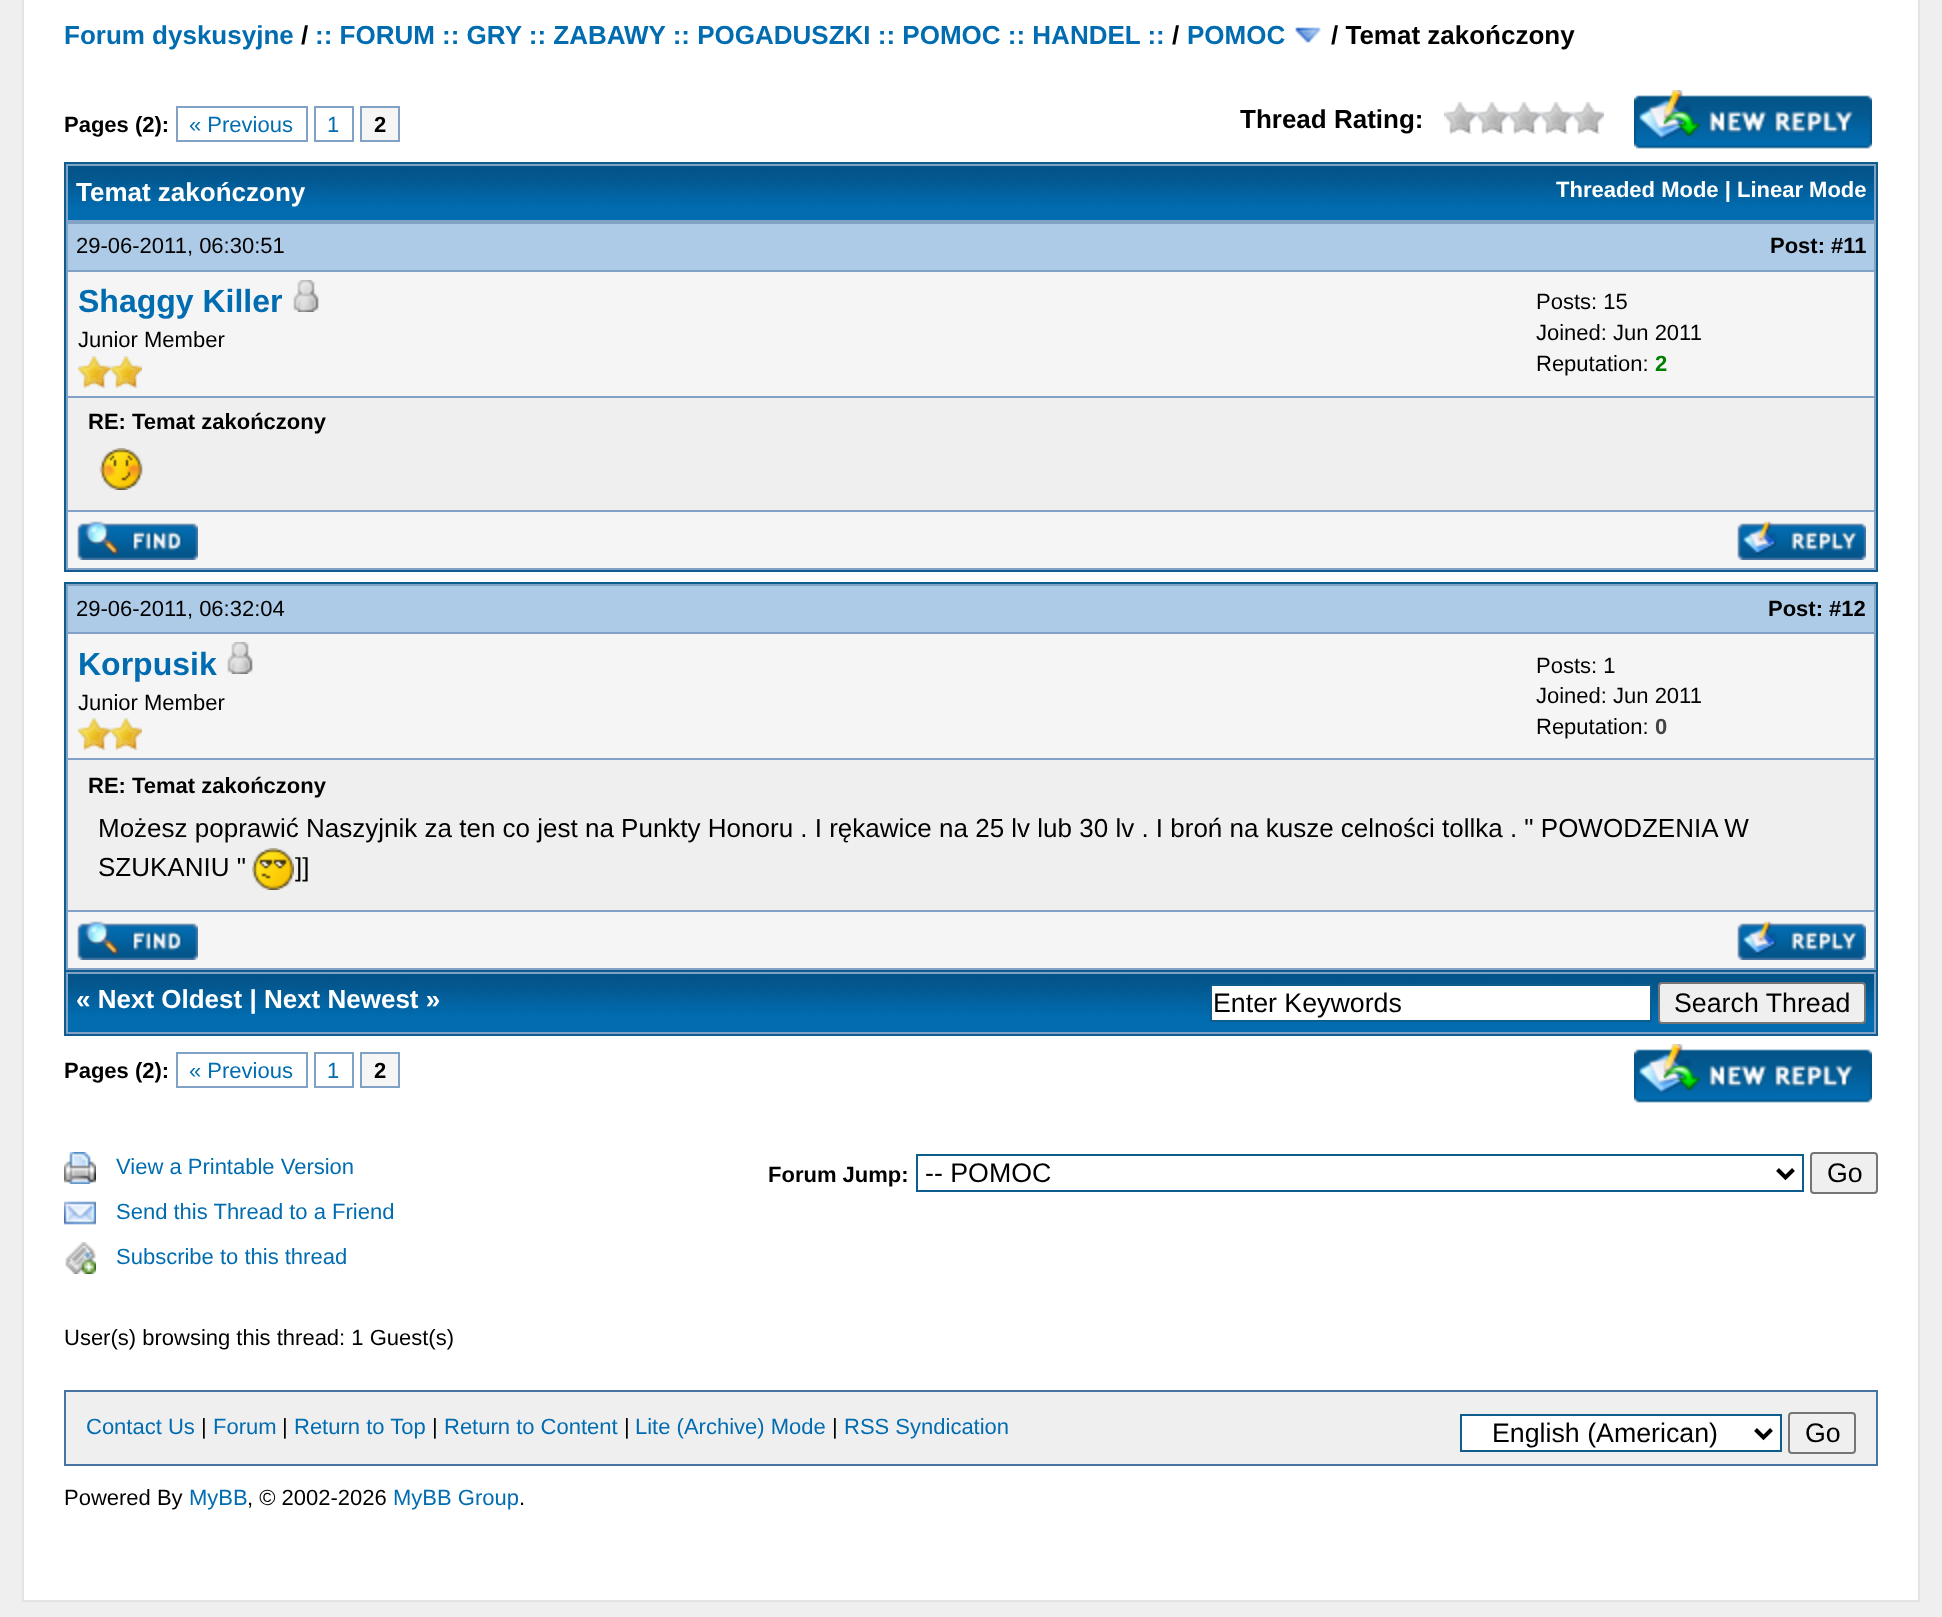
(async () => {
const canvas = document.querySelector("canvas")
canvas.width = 1942
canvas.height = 1617
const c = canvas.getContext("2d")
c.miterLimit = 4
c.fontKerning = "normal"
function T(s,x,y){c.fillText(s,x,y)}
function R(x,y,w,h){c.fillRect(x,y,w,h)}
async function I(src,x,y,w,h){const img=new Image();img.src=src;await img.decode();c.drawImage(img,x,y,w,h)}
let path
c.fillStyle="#efefef"
R(0,0,1942,1617)
c.fillStyle="#fff"
c.beginPath()
c.rect(23,-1,1896,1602)
c.fill()
c.strokeStyle="#e4e4e4"
c.lineWidth=2
c.stroke()
c.font="bold 26px Liberation Sans"
c.fillStyle="#026cb1"
T("Forum dyskusyjne",64,44)
c.fillStyle="#000"
T("/",301,44)
c.fillStyle="#026cb1"
T(":: FORUM :: GRY :: ZABAWY :: POGADUSZKI :: POMOC :: HANDEL ::",315,44)
c.fillStyle="#000"
T("/",1172,44)
c.fillStyle="#026cb1"
T("POMOC",1187,44)
await I("1.png",1295,27,26,16)
c.fillStyle="#000"
T("/ Temat zakończony",1331,44)
c.font="bold 22px Liberation Sans"
T("Pages (2):",64,132)
c.strokeStyle="#81a2c4"
c.strokeRect(177,107,130,34)
c.font="22px Liberation Sans"
c.fillStyle="#026cb1"
T("« Previous",189,132)
c.strokeRect(315,107,38,34)
T("1",327,132)
c.fillStyle="#f5f5f5"
c.beginPath()
c.rect(361,107,38,34)
c.fill()
c.stroke()
c.font="bold 22px Liberation Sans"
c.fillStyle="#000"
T("2",374,132)
c.font="bold 26px Liberation Sans"
T("Thread Rating:",1240,128)
await I("2.png",1444,102,160,32)
await I("3.png",1634,90,238,59)
c.fillStyle="#81a2c4"
R(66,164,1810,406)
c.fillStyle="#0f5c8e"
R(64,162,1814,2)
R(1876,162,2,410)
R(64,162,2,60)
c.fillStyle="#026cb1"
R(68,207,1806,13)
await I("4.png",68,166,1806,41)
c.fillStyle="#fff"
T("Temat zakończony",76,201)
c.font="bold 22px Liberation Sans"
T("Threaded Mode | Linear Mode",1556,197)
c.fillStyle="#0f5c8e"
R(64,570,1814,2)
R(64,222,2,350)
c.fillStyle="#adcbe7"
R(68,224,1806,46)
c.font="22px Liberation Sans"
c.fillStyle="#000"
T("29-06-2011, 06:30:51",76,253)
c.font="bold 22px Liberation Sans"
T("Post: #11",1770,253)
c.fillStyle="#f5f5f5"
R(68,272,1806,124)
c.font="bold 32px Liberation Sans"
c.fillStyle="#026cb1"
T("Shaggy Killer",78,312)
await I("5.png",293,280,26,32)
c.font="22px Liberation Sans"
c.fillStyle="#000"
T("Junior Member",78,347)
await I("6.png",78,356,32,32)
await I("6.png",110,356,32,32)
T("Posts: 15",1536,309)
T("Joined: Jun 2011",1536,340)
T("Reputation:",1536,371)
c.font="bold 22px Liberation Sans"
c.fillStyle="#008000"
T("2",1655,371)
c.fillStyle="#efefef"
R(68,398,1806,112)
c.fillStyle="#000"
T("RE: Temat zakończony",88,429)
await I("7.png",99,448,44,42)
c.fillStyle="#f5f5f5"
R(68,512,1806,56)
await I("8.png",77,521,121,39)
await I("9.png",1737,521,129,39)
c.fillStyle="#81a2c4"
c.beginPath()
c.rect(65,583,1812,388)
c.fill()
c.strokeStyle="#0f5c8e"
c.stroke()
c.fillStyle="#adcbe7"
R(68,586,1806,46)
c.font="22px Liberation Sans"
c.fillStyle="#000"
T("29-06-2011, 06:32:04",76,616)
c.font="bold 22px Liberation Sans"
T("Post: #12",1768,616)
c.fillStyle="#f5f5f5"
R(68,634,1806,124)
c.font="bold 32px Liberation Sans"
c.fillStyle="#026cb1"
T("Korpusik",78,675)
await I("5.png",227,642,26,32)
c.font="22px Liberation Sans"
c.fillStyle="#000"
T("Junior Member",78,710)
await I("6.png",78,718,32,32)
await I("6.png",110,718,32,32)
T("Posts: 1",1536,673)
T("Joined: Jun 2011",1536,703)
T("Reputation:",1536,734)
c.font="bold 22px Liberation Sans"
c.fillStyle="#444"
T("0",1655,734)
c.fillStyle="#efefef"
R(68,760,1806,150)
c.fillStyle="#000"
T("RE: Temat zakończony",88,793)
c.font="26px Liberation Sans"
T("Możesz poprawić Naszyjnik za ten co jest na Punkty Honoru . I rękawice na 25 lv lub 30 lv . I broń na kusze celności tollka . \" POWODZENIA W",98,837)
T("SZUKANIU \"",98,876)
await I("10.png",252,848,42,42)
T("]]",295,876)
c.fillStyle="#f5f5f5"
R(68,912,1806,56)
await I("8.png",77,921,121,39)
await I("9.png",1737,921,129,39)
c.fillStyle="#81a2c4"
R(66,972,1810,62)
c.fillStyle="#0f5c8e"
R(1876,972,2,64)
R(64,1034,1814,2)
R(64,972,2,64)
c.fillStyle="#026cb1"
R(68,1015,1806,17)
await I("4.png",68,974,1806,41)
c.font="bold 26px Liberation Sans"
c.fillStyle="#fff"
T("« Next Oldest | Next Newest »",76,1008)
c.beginPath()
c.rect(1211,985,440,36)
c.fill()
c.stroke()
c.font="26.75px Liberation Sans"
c.fillStyle="#000"
T("Enter Keywords",1213,1012)
c.fillStyle="#efefef"
c.beginPath()
c.roundRect(1659,983,206,40,3)
c.fill()
c.strokeStyle="#767676"
c.stroke()
c.fillStyle="#000"
T("Search Thread",1674,1012)
c.font="bold 22px Liberation Sans"
T("Pages (2):",64,1078)
c.strokeStyle="#81a2c4"
c.strokeRect(177,1053,130,34)
c.font="22px Liberation Sans"
c.fillStyle="#026cb1"
T("« Previous",189,1078)
c.strokeRect(315,1053,38,34)
T("1",327,1078)
c.fillStyle="#f5f5f5"
c.beginPath()
c.rect(361,1053,38,34)
c.fill()
c.stroke()
c.font="bold 22px Liberation Sans"
c.fillStyle="#000"
T("2",374,1078)
await I("3.png",1634,1044,238,59)
await I("11.png",64,1152,32,32)
c.font="22px Liberation Sans"
c.fillStyle="#026cb1"
T("View a Printable Version",116,1174)
await I("12.png",64,1201,32,24)
T("Send this Thread to a Friend",116,1219)
await I("13.png",65,1242,31,32)
T("Subscribe to this thread",116,1264)
c.font="bold 22px Liberation Sans"
c.fillStyle="#000"
T("Forum Jump:",768,1182)
c.strokeStyle="#0f5c8e"
c.strokeRect(917,1155,886,36)
path = new Path2D("M1777.5 1169.5l8 8l8-8")
c.strokeStyle="#000"
c.lineWidth=4
c.stroke(path)
c.font="26.75px Liberation Sans"
T("-- POMOC",925,1182)
c.fillStyle="#efefef"
c.beginPath()
c.roundRect(1811,1153,66,40,3)
c.fill()
c.strokeStyle="#767676"
c.lineWidth=2
c.stroke()
c.fillStyle="#000"
T("Go",1827,1182)
c.font="22px Liberation Sans"
T("User(s) browsing this thread: 1 Guest(s)",64,1345)
c.fillStyle="#efefef"
c.beginPath()
c.rect(65,1391,1812,74)
c.fill()
c.strokeStyle="#4874a3"
c.stroke()
c.fillStyle="#026cb1"
T("Contact Us",86,1434)
c.fillStyle="#000"
T("|",201,1434)
c.fillStyle="#026cb1"
T("Forum",213,1434)
c.fillStyle="#000"
T("|",282,1434)
c.fillStyle="#026cb1"
T("Return to Top",294,1434)
c.fillStyle="#000"
T("|",432,1434)
c.fillStyle="#026cb1"
T("Return to Content",444,1434)
c.fillStyle="#000"
T("|",624,1434)
c.fillStyle="#026cb1"
T("Lite (Archive) Mode",635,1434)
c.fillStyle="#000"
T("|",832,1434)
c.fillStyle="#026cb1"
T("RSS Syndication",844,1434)
c.fillStyle="#fff"
c.beginPath()
c.rect(1461,1415,320,36)
c.fill()
c.strokeStyle="#0f5c8e"
c.stroke()
path = new Path2D("M1755.5 1429.5l8 8l8-8")
c.strokeStyle="#000"
c.lineWidth=4
c.stroke(path)
c.font="26.75px Liberation Sans"
c.fillStyle="#000"
T("English (American)",1492,1442)
c.beginPath()
c.roundRect(1789,1413,66,40,3)
c.strokeStyle="#767676"
c.lineWidth=2
c.stroke()
T("Go",1805,1442)
c.font="22px Liberation Sans"
T("Powered By",64,1505)
c.fillStyle="#026cb1"
T("MyBB",189,1505)
c.fillStyle="#000"
T(", © 2002-2026",247,1505)
c.fillStyle="#026cb1"
T("MyBB Group",393,1505)
c.fillStyle="#000"
T(".",519,1505)
})()
